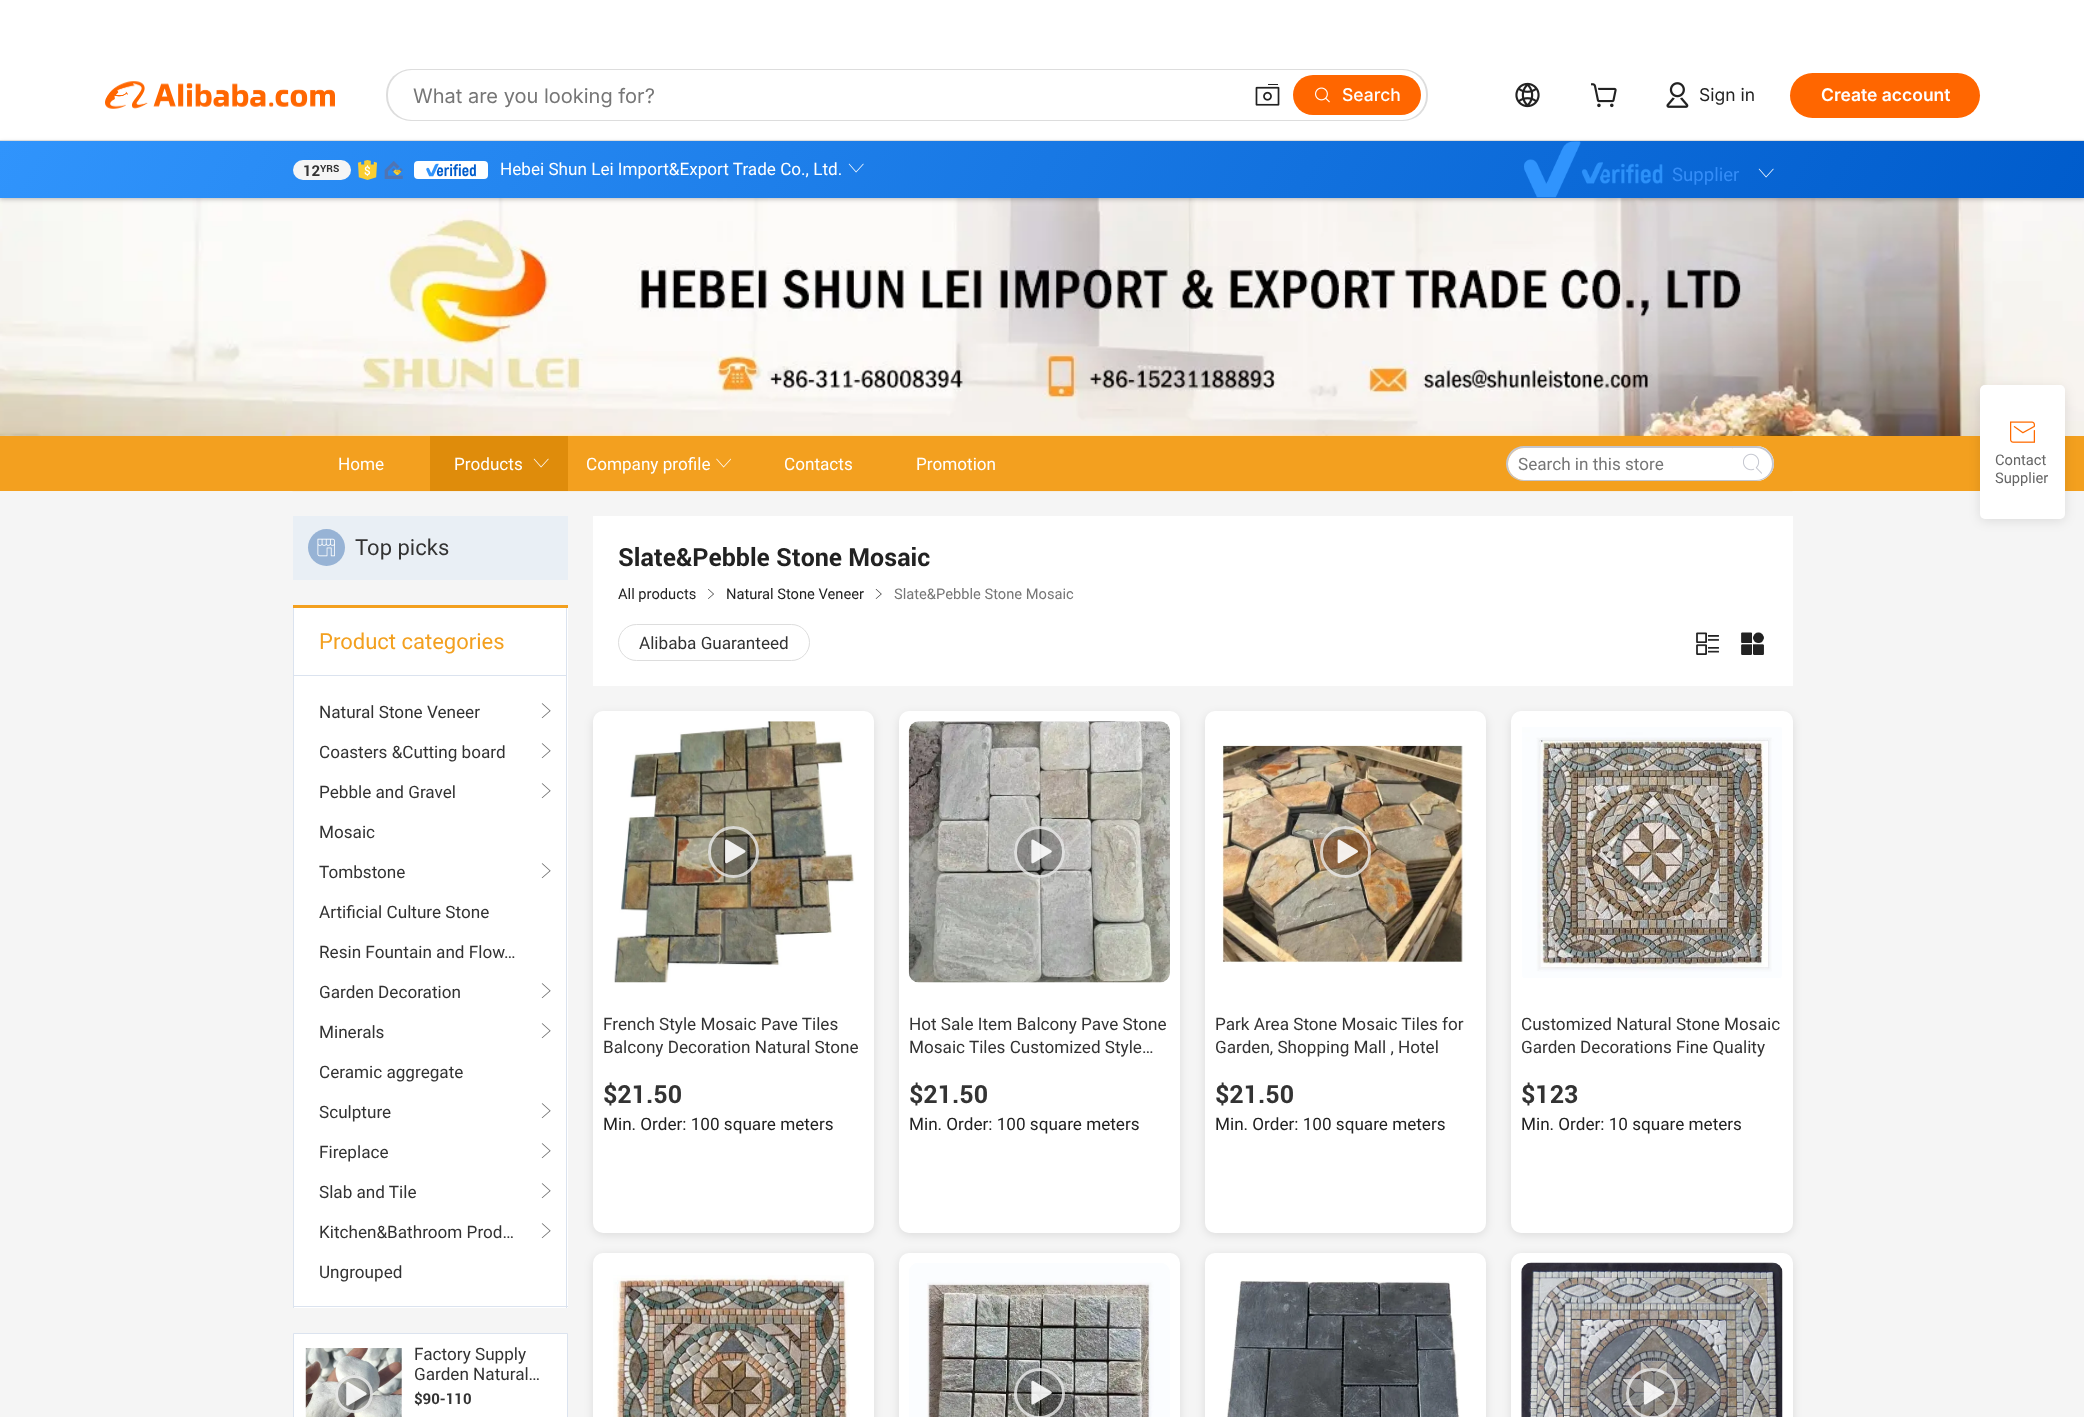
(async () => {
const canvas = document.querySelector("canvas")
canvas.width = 2084
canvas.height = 1417
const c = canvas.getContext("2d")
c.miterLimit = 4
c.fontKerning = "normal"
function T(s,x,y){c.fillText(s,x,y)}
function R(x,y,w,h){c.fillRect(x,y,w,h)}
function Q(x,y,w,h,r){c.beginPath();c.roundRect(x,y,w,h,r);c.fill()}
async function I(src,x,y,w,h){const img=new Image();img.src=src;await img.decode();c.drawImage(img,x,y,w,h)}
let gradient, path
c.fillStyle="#fff"
R(0,0,2084,1417)
await I("17.png",0,198,2084,238)
c.fillStyle="#f5f5f5"
R(0,491,2084,926)
await I("13.png",292,198,1501,294)
c.fillStyle="#00000047"
c.filter="blur(2.5px)"
c.beginPath()
c.rect(0,143,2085,56)
c.fill()
c.filter="none"
c.fillStyle="#ddd"
R(0,140,2084,1)
await I("1.png",105,81,230,28)
Q(386,69,1042,52,25)
c.fillStyle="#fff"
Q(388,70,1038,50,24)
c.font="20px Inter"
c.fillStyle="#767676"
T("What are you looking for?",413,103)
await I("2.png",1255,84,25,22)
c.fillStyle="#f60"
Q(1293,75,128,40,20)
await I("3.png",1315,87,15,16)
c.font="500 17.5px Inter"
c.fillStyle="#fff"
T("Search",1342,101)
await I("4.png",1515,82,25,26)
await I("5.png",1591,83,26,25)
await I("6.png",1666,82,23,26)
c.font="17.5px Inter"
c.fillStyle="#222"
T("Sign in",1699,101)
c.fillStyle="#f60"
Q(1790,73,190,45,22.5)
c.font="600 17.5px Inter"
c.fillStyle="#fff"
T("Create account",1821,101)
gradient = c.createLinearGradient(218,-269,1867,608)
gradient.addColorStop(0,"#3094fc")
gradient.addColorStop(1,"#005ccc")
c.fillStyle = gradient
R(0,141,2084,57)
c.fillStyle="#f5f5f5"
Q(293,160,58,20,10)
c.font="bold 15px Roboto"
c.fillStyle="#333"
T("12",303,176)
c.font="bold 10px Roboto"
T("YRS",320,172)
await I("7.png",358,160,19,20)
await I("8.png",384,161,19,18)
c.fillStyle="#fff"
Q(414,161,74,18,4)
await I("9.png",426,163,50,14)
c.font="17.5px Roboto"
T("Hebei Shun Lei Import&Export Trade Co., Ltd.",500,175)
await I("10.png",848,163,16,10)
await I("11.png",1524,141,139,57)
c.font="19px Roboto"
c.fillStyle="#348df8"
T("Supplier",1672,181)
await I("12.png",1758,168,16,10)
c.fillStyle="#f3a01f"
R(0,436,2084,55)
c.font="17.5px Roboto"
c.fillStyle="#fff"
T("Home",338,470)
c.fillStyle="#df8c0b"
R(430,436,138,55)
c.fillStyle="#fff"
T("Products",454,470)
await I("14.png",533,458,16,10)
T("Company profile",586,470)
await I("15.png",716,458,15,10)
T("Contacts",784,470)
T("Promotion",916,470)
c.fillStyle="#c4c6cf"
path = new Path2D("M1524 446h208v35h-208c-10 0-18-8-18-17c0-10 8-18 18-18zm0 2h208v32h-208c-9 0-16-7-16-16c0-9 7-16 16-16z")
c.fill(path,"evenodd")
c.fillStyle="#fff"
c.beginPath()
c.roundRect(1508,448,225,32,[16,.5,.5,16])
c.fill()
c.fillStyle="#767676"
T("Search in this store",1518,470)
c.fillStyle="#fff"
c.beginPath()
c.roundRect(1733,446,41,35,[0,17.5,17.5,0])
c.fill()
c.fillStyle="#c4c6cf"
path = new Path2D("M1732 446h24c10 0 18 8 18 18c0 9-8 17-18 17h-24zm0 2h24c9 0 16 7 16 16c0 9-7 16-16 16h-24z")
c.fill(path,"evenodd")
await I("16.png",1743,453,19,21)
c.fillStyle="#e9eff5"
R(293,516,275,64)
c.fillStyle="#97b3d5"
c.beginPath()
c.arc(326.5,547.5,18.5,0,7)
c.fill()
await I("18.png",317,538,18,19)
c.font="22.5px Roboto"
c.fillStyle="#333"
T("Top picks",355,555)
c.fillStyle="#fff"
R(294,608,274,700)
c.fillStyle="#f3a01f"
R(293,605,275,3)
c.fillStyle="#dbe3ef"
R(566,608,1,700)
R(293,1306,275,1)
R(293,608,1,700)
R(294,675,272,1)
c.fillStyle="#f3a01f"
T("Product categories",319,649)
c.font="17.5px Roboto"
c.fillStyle="#333"
T("Natural Stone Veneer",319,718)
await I("19.png",541,703,10,16)
T("Coasters &Cutting board",319,758)
await I("19.png",541,743,10,16)
T("Pebble and Gravel",319,798)
await I("19.png",541,783,10,16)
T("Mosaic",319,838)
T("Tombstone",319,878)
await I("19.png",541,863,10,16)
T("Artificial Culture Stone",319,918)
T("Resin Fountain and Flow…",319,958)
T("Garden Decoration",319,998)
await I("19.png",541,983,10,16)
T("Minerals",319,1038)
await I("19.png",541,1023,10,16)
T("Ceramic aggregate",319,1078)
T("Sculpture",319,1118)
await I("19.png",541,1103,10,16)
T("Fireplace",319,1158)
await I("19.png",541,1143,10,16)
T("Slab and Tile",319,1198)
await I("19.png",541,1183,10,16)
T("Kitchen&Bathroom Prod…",319,1238)
await I("19.png",541,1223,10,16)
T("Ungrouped",319,1278)
c.fillStyle="#fff"
c.beginPath()
c.rect(293.5,1333.5,274,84)
c.fill()
c.strokeStyle="#dbe3ef"
c.stroke()
await I("20.png",305,1348,97,69)
c.fillStyle="#00000045"
c.beginPath()
c.arc(354,1394,19,0,7)
c.fill()
c.beginPath()
c.arc(354,1394,17.5,0,7)
c.strokeStyle="#ffffffb8"
c.lineWidth=3
c.stroke()
await I("21.png",346,1381,21,25)
c.fillStyle="#333"
T("Factory Supply",414,1360)
T("Garden Natural…",414,1380)
c.font="bold 15px Roboto"
T("$90-110",414,1404)
c.fillStyle="#fff"
R(593,516,1200,170)
c.font="bold 25px Roboto"
c.fillStyle="#222"
T("Slate&Pebble Stone Mosaic",618,566)
c.font="15px Roboto"
T("All products",618,599)
await I("22.png",708,589,6,10)
T("Natural Stone Veneer",726,599)
await I("23.png",875,589,7,10)
c.fillStyle="#767676"
T("Slate&Pebble Stone Mosaic",894,599)
c.beginPath()
c.roundRect(618.5,624.5,191,36,18)
c.strokeStyle="#ddd"
c.lineWidth=1
c.stroke()
c.font="17.5px Roboto"
c.fillStyle="#333"
T("Alibaba Guaranteed",639,649)
await I("24.png",1696,632,23,23)
await I("25.png",1741,632,23,23)
c.fillStyle="#0000001a"
c.filter="blur(5px)"
c.beginPath()
c.roundRect(593,714,281,521,10)
c.fill()
c.filter="none"
c.fillStyle="#fff"
Q(593,711,281,522,10)
await I("26.png",603,721,259,262)
c.fillStyle="#00000045"
Q(708,826,51,52,25.5)
c.beginPath()
c.roundRect(709.5,827.5,48,49,24)
c.strokeStyle="#ffffffb8"
c.lineWidth=3
c.stroke()
await I("27.png",725,839,21,25)
c.fillStyle="#333"
T("French Style Mosaic Pave Tiles",603,1030)
T("Balcony Decoration Natural Stone",603,1053)
c.font="bold 25px Roboto"
T("$21.50",603,1103)
c.font="17.5px Roboto"
c.fillStyle="#222"
T("Min. Order: 100 square meters",603,1130)
c.fillStyle="#0000001a"
c.filter="blur(5px)"
c.beginPath()
c.roundRect(899,714,281,521,10)
c.fill()
c.filter="none"
c.fillStyle="#fff"
Q(899,711,281,522,10)
await I("28.png",908,721,262,262)
c.fillStyle="#00000045"
Q(1014,826,51,52,25.5)
c.beginPath()
c.roundRect(1015.5,827.5,48,49,24)
c.stroke()
await I("29.png",1031,839,21,25)
c.fillStyle="#333"
T("Hot Sale Item Balcony Pave Stone",909,1030)
T("Mosaic Tiles Customized Style…",909,1053)
c.font="bold 25px Roboto"
T("$21.50",909,1103)
c.font="17.5px Roboto"
c.fillStyle="#222"
T("Min. Order: 100 square meters",909,1130)
c.fillStyle="#0000001a"
c.filter="blur(5px)"
c.beginPath()
c.roundRect(1205,714,281,521,10)
c.fill()
c.filter="none"
c.fillStyle="#fff"
Q(1205,711,281,522,10)
await I("30.png",1215,722,261,258)
c.fillStyle="#00000045"
Q(1320,826,51,52,25.5)
c.beginPath()
c.roundRect(1321.5,827.5,48,49,24)
c.stroke()
await I("31.png",1337,839,21,25)
c.fillStyle="#333"
T("Park Area Stone Mosaic Tiles for",1215,1030)
T("Garden, Shopping Mall , Hotel",1215,1053)
c.font="bold 25px Roboto"
T("$21.50",1215,1103)
c.font="17.5px Roboto"
c.fillStyle="#222"
T("Min. Order: 100 square meters",1215,1130)
c.fillStyle="#0000001a"
c.filter="blur(5px)"
c.beginPath()
c.roundRect(1511,714,282,521,10)
c.fill()
c.filter="none"
c.fillStyle="#fff"
Q(1511,711,282,522,10)
await I("32.png",1522,727,260,251)
c.fillStyle="#333"
T("Customized Natural Stone Mosaic",1521,1030)
T("Garden Decorations Fine Quality",1521,1053)
c.font="bold 25px Roboto"
T("$123",1521,1103)
c.font="17.5px Roboto"
c.fillStyle="#222"
T("Min. Order: 10 square meters",1521,1130)
c.fillStyle="#0000001a"
c.filter="blur(5px)"
c.beginPath()
c.roundRect(593,1255,281,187,10)
c.fill()
c.filter="none"
c.fillStyle="#fff"
Q(593,1253,281,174,10)
await I("33.png",613,1275,237,142)
c.fillStyle="#0000001a"
c.filter="blur(5px)"
c.beginPath()
c.roundRect(899,1255,281,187,10)
c.fill()
c.filter="none"
c.fillStyle="#fff"
Q(899,1253,281,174,10)
await I("34.png",909,1263,261,154)
c.fillStyle="#00000045"
c.beginPath()
c.arc(1039.5,1393.5,25.5,0,7)
c.fill()
c.beginPath()
c.arc(1039.5,1393.5,24,0,7)
c.stroke()
await I("35.png",1031,1380,21,25)
c.fillStyle="#0000001a"
c.filter="blur(5px)"
c.beginPath()
c.roundRect(1205,1255,281,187,10)
c.fill()
c.filter="none"
c.fillStyle="#fff"
Q(1205,1253,281,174,10)
await I("36.png",1227,1280,233,137)
c.fillStyle="#0000001a"
c.filter="blur(5px)"
c.beginPath()
c.roundRect(1511,1255,282,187,10)
c.fill()
c.filter="none"
c.fillStyle="#fff"
Q(1511,1253,282,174,10)
await I("37.png",1521,1262,262,155)
c.fillStyle="#00000045"
Q(1626,1368,52,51,25.5)
c.beginPath()
c.roundRect(1627.5,1369.5,49,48,24)
c.stroke()
await I("38.png",1643,1380,22,25)
c.fillStyle="#0000001a"
c.filter="blur(6px)"
c.beginPath()
c.roundRect(1980,388,85,133,5)
c.fill()
c.filter="none"
c.fillStyle="#fff"
Q(1980,385,85,134,5)
await I("39.png",2010,421,25,22)
c.font="15px Roboto"
c.fillStyle="#666"
T("Contact",1995,465)
T("Supplier",1995,483)
})()
